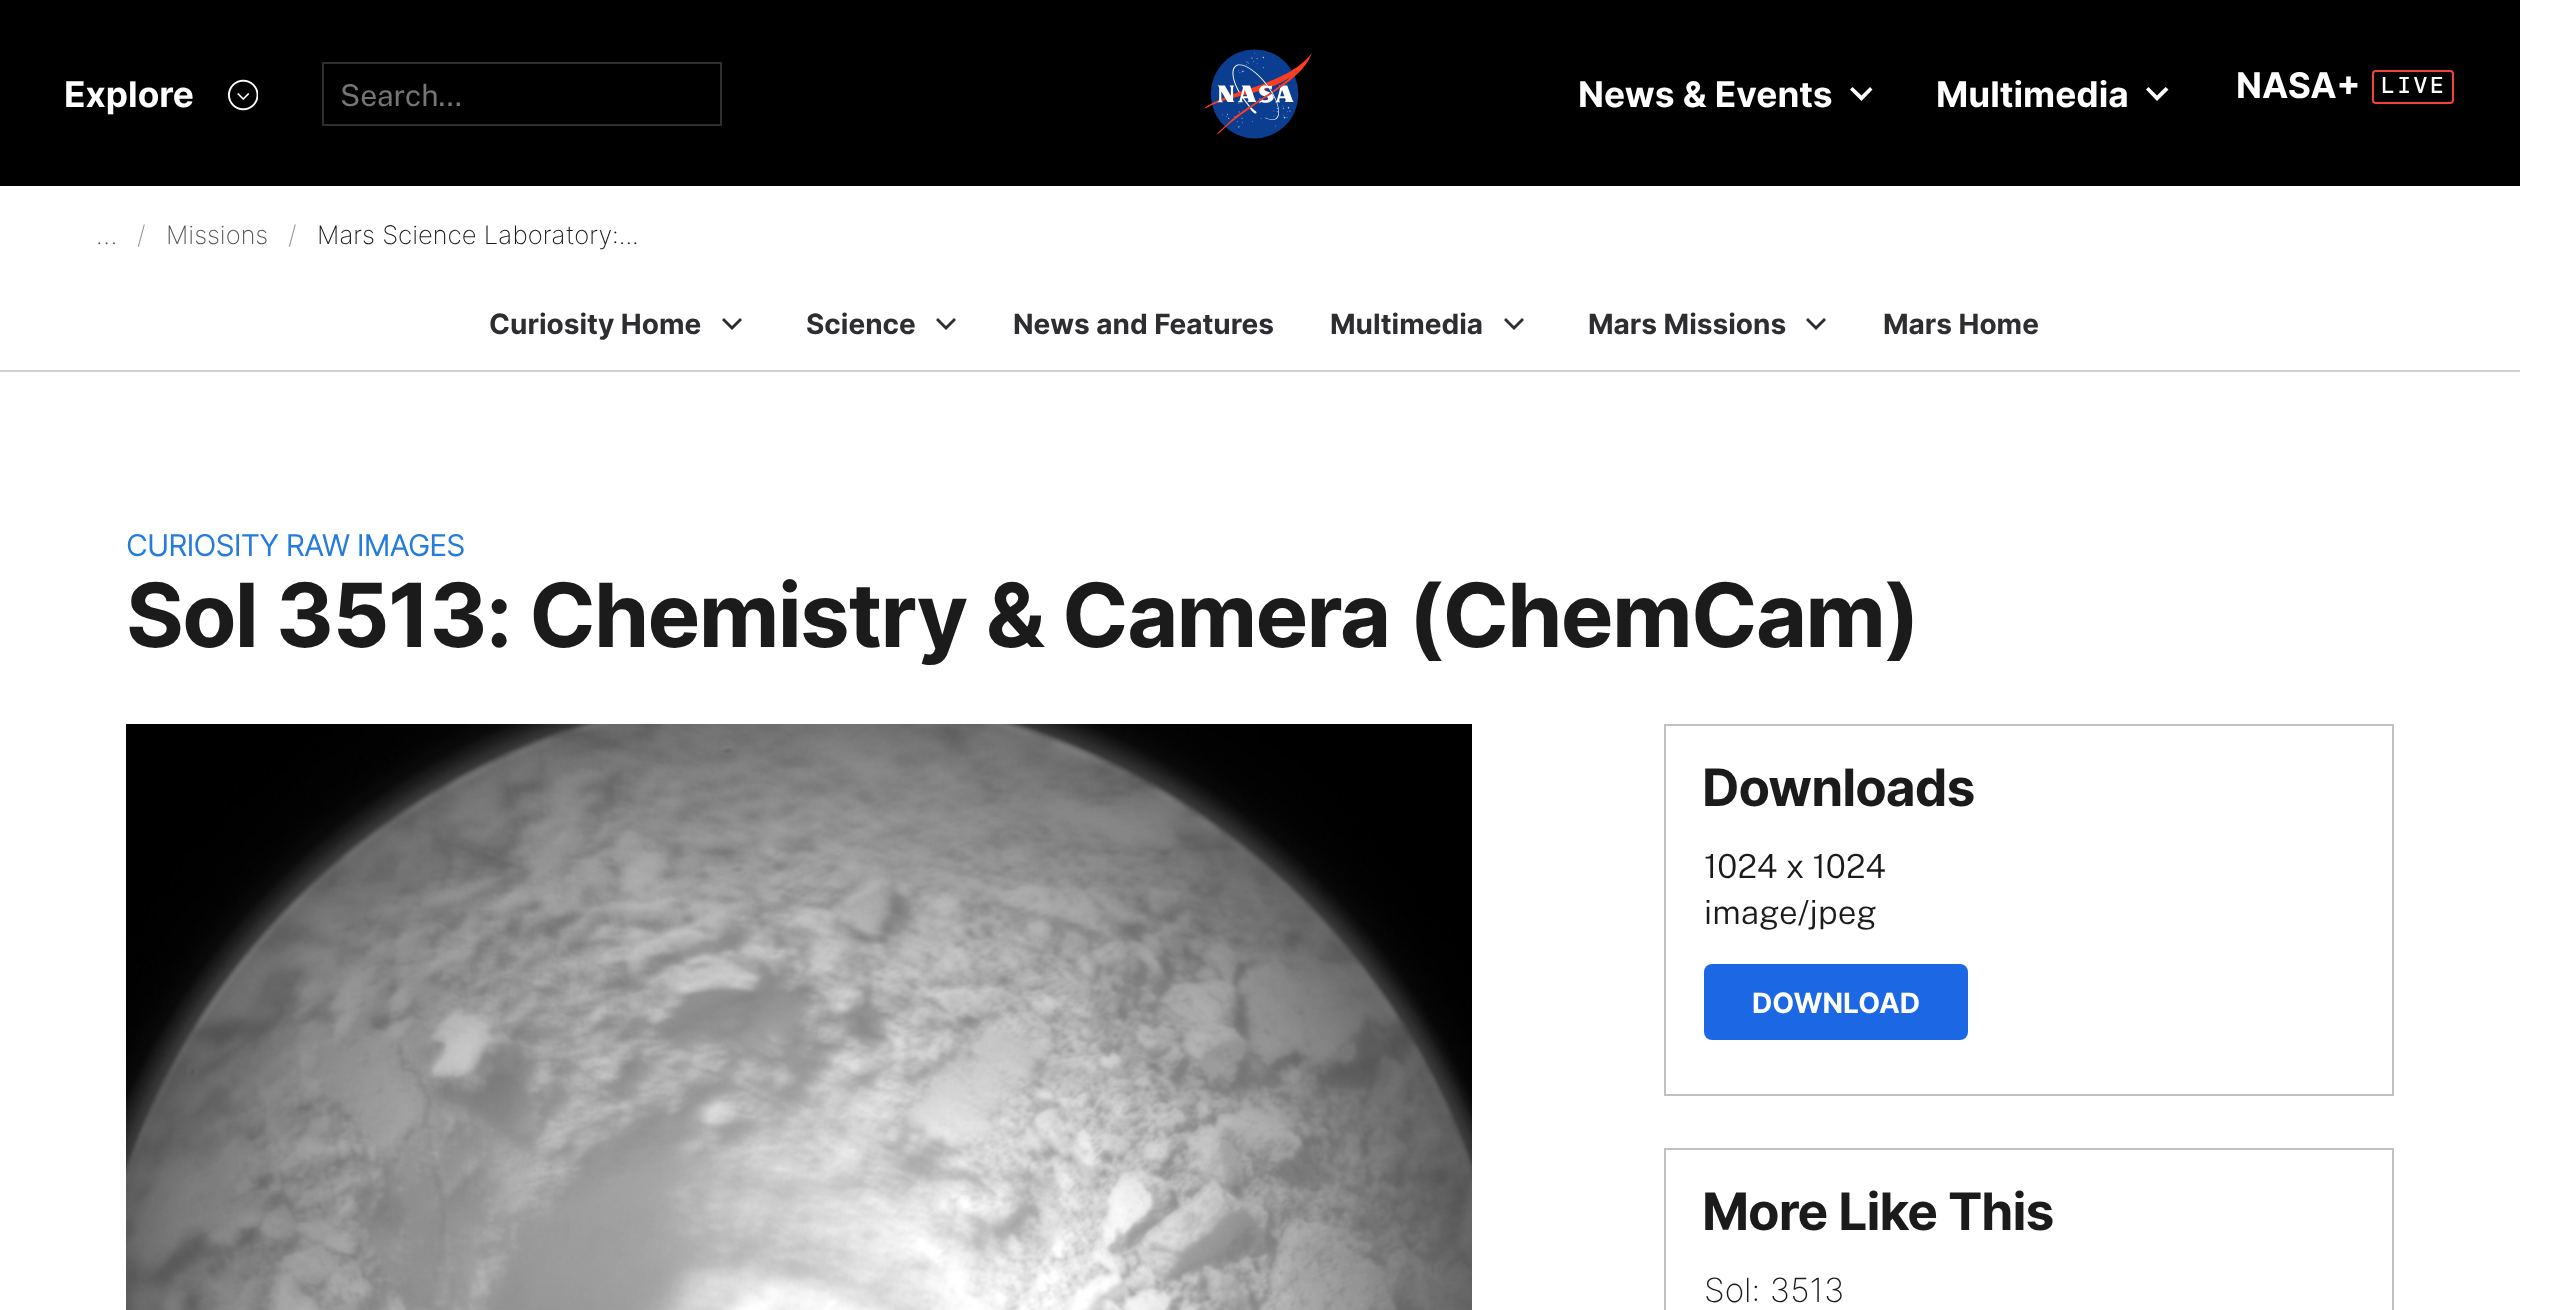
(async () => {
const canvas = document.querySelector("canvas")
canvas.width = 2549
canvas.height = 1310
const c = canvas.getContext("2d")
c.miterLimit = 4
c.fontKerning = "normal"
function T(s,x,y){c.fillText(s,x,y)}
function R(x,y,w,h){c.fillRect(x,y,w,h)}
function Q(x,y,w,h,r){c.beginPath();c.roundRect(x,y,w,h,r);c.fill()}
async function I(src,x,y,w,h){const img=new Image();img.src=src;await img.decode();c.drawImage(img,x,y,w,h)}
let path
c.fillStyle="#fff"
R(0,0,2549,1310)
c.fillStyle="#000"
R(0,0,2520,186)
c.font="bold 35.25px Inter"
c.fillStyle="#fff"
T("Explore",64,107)
await I("1.png",228,79,30,32)
c.strokeStyle="#2e2e32"
c.lineWidth=2
c.strokeRect(323,63,398,62)
c.font="30px Public Sans"
c.fillStyle="#757575"
T("Search...",340,106)
await I("2.png",1205,49,107,90)
c.font="bold 35.25px Inter"
c.fillStyle="#fff"
T("News & Events",1578,107)
path = new Path2D("M1870 87l-8.5 8.5l-9-8.5l-2.5 2.5l11.5 11.5l11-11.5z")
c.fill(path)
T("Multimedia",1936,107)
path = new Path2D("M2165.5 87l-8.5 8.5l-8.5-8.5l-2.5 2.5l11 11.5l11.5-11.5z")
c.fill(path)
T("NASA+",2236,98)
c.beginPath()
c.roundRect(2373,71,80,32,3)
c.strokeStyle="#f64137"
c.stroke()
c.letterSpacing="2.5px"
c.font="500 23px DM Mono"
T("LIVE",2381,93)
c.fillStyle="#d1d1d1"
R(0,370,2520,2)
c.letterSpacing="0px"
c.font="200 25.6px Inter"
c.fillStyle="#58585b"
T("…",96,244)
c.fillStyle="#959599"
T("/",137,244)
c.fillStyle="#58585b"
T("Missions",166,244)
c.fillStyle="#959599"
T("/",288,244)
c.fillStyle="#1b1b1b"
T("Mars Science Laboratory:...",317,244)
c.font="bold 28px Inter"
c.fillStyle="#2e2e32"
T("Curiosity Home",489,334)
path = new Path2D("M722 320l10 10l10-10l-2-2l-8 8l-8-8z")
c.fill(path)
T("Science",806,334)
path = new Path2D("M936 320l10 10l10-10l-2-2l-8 8l-8-8z")
c.fill(path)
T("News and Features",1013,334)
T("Multimedia",1330,334)
path = new Path2D("M1504 320l10 10l10-10l-2-2l-8 8l-8-8z")
c.fill(path)
T("Mars Missions",1588,334)
path = new Path2D("M1806 320l10 10l10-10l-2-2l-8 8l-8-8z")
c.fill(path)
T("Mars Home",1883,334)
c.letterSpacing="-0.9px"
c.font="30px Inter"
c.fillStyle="#257cdf"
T("CURIOSITY RAW IMAGES",126,556)
c.letterSpacing="-1.75px"
c.font="bold 88.5px Inter"
c.fillStyle="#1b1b1b"
T("Sol 3513: Chemistry & Camera (ChemCam)",126,647)
await I("3.png",126,724,1346,586)
c.strokeStyle="#c1c1c1"
c.strokeRect(1665,725,728,370)
c.letterSpacing="-1px"
c.font="bold 51.5px Inter"
T("Downloads",1702,806)
c.letterSpacing="0px"
c.font="300 33.25px Public Sans"
T("1024 x 1024",1704,878)
T("image/jpeg",1704,924)
c.fillStyle="#1c67e3"
Q(1704,964,264,76,8)
c.font="bold 28px Inter"
c.fillStyle="#fff"
T("DOWNLOAD",1752,1013)
c.strokeRect(1665,1149,728,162)
c.letterSpacing="-1px"
c.font="bold 51.5px Inter"
c.fillStyle="#1b1b1b"
T("More Like This",1702,1230)
c.letterSpacing="0px"
c.font="200 33.25px Inter"
T("Sol: 3513",1704,1302)
})()
